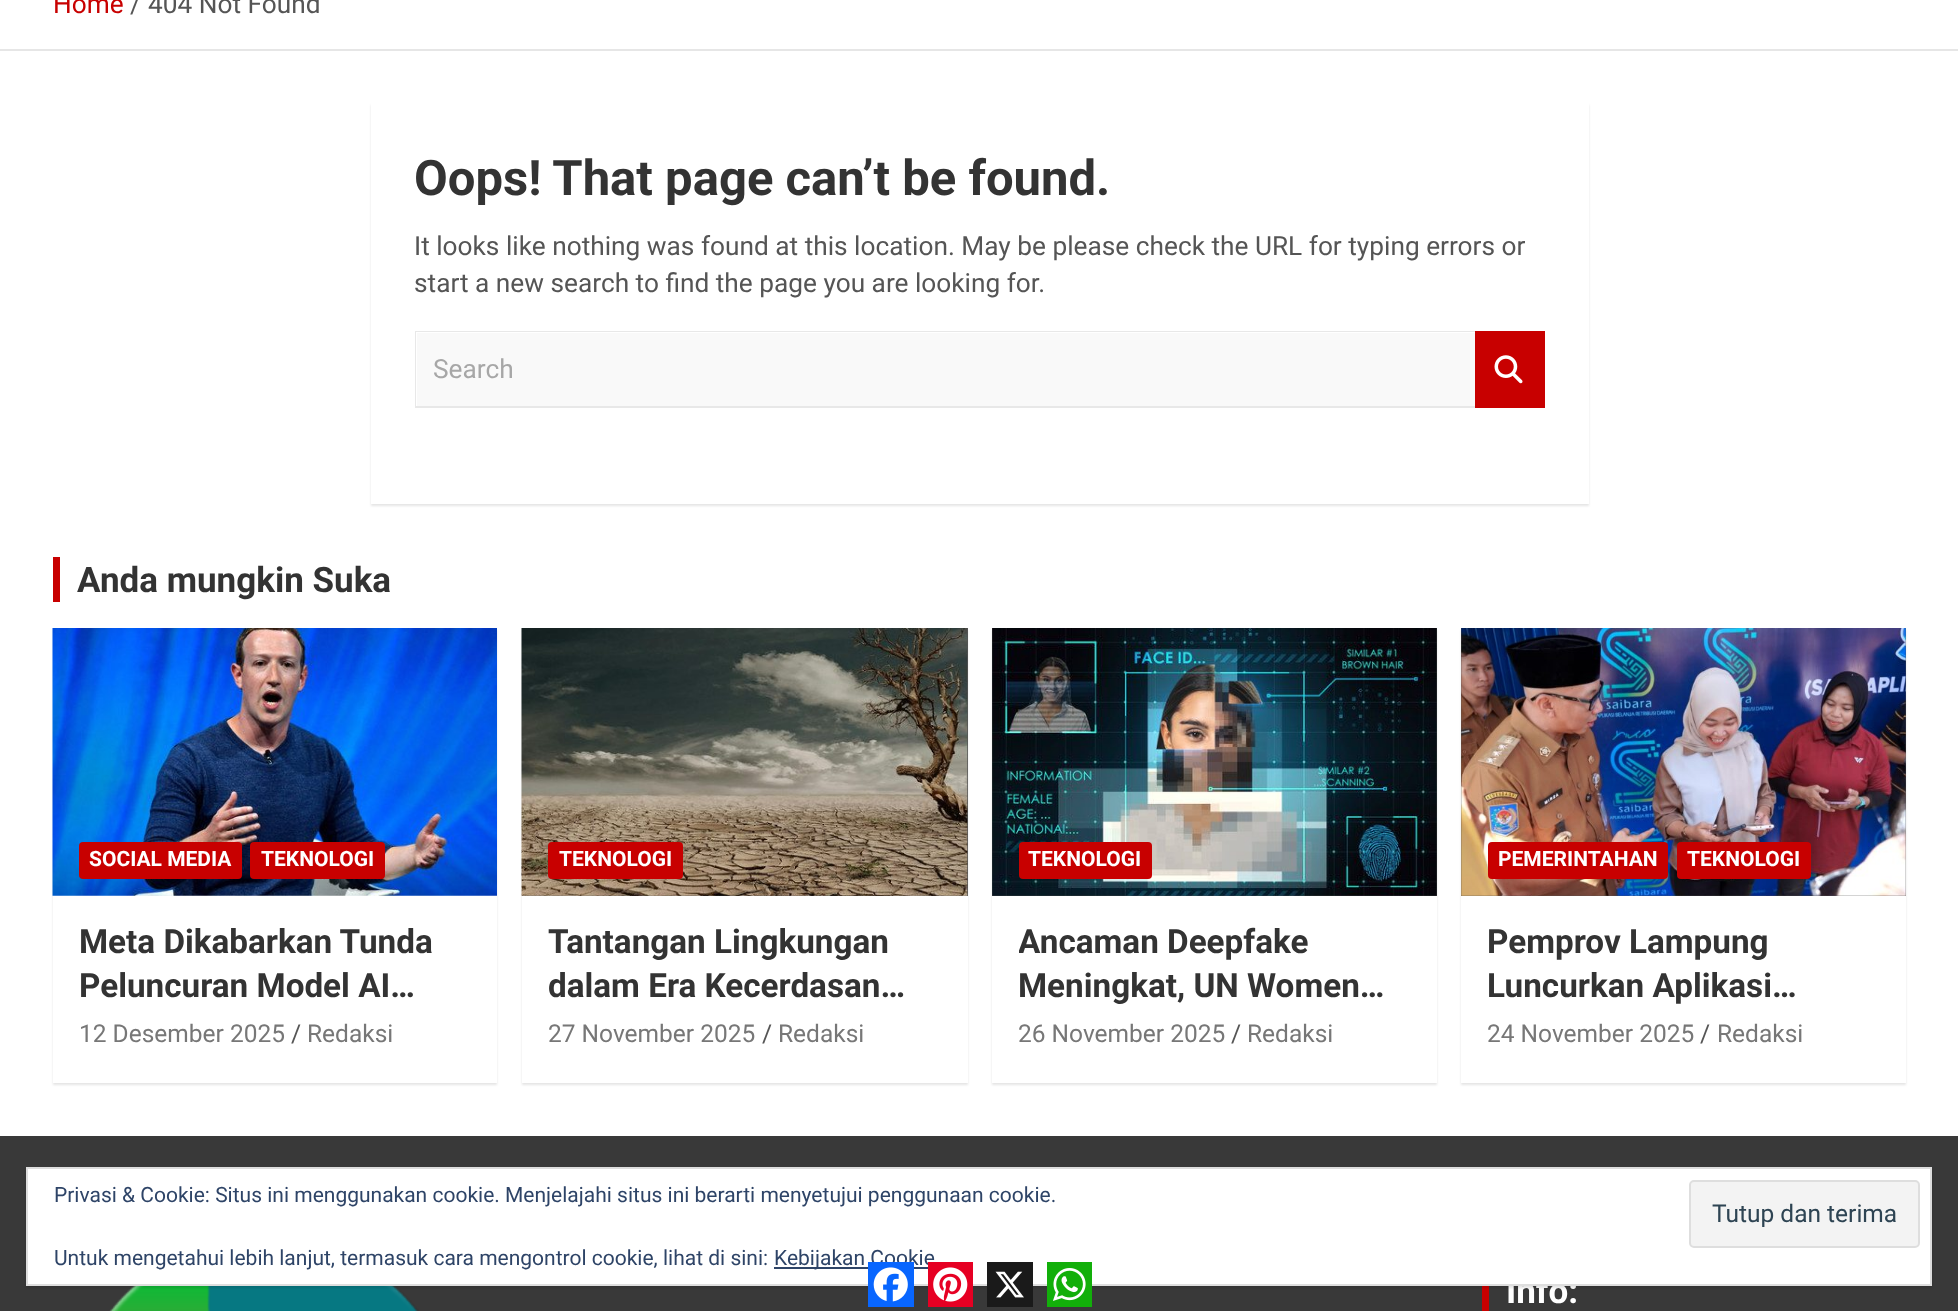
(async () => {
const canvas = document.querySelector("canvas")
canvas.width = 1958
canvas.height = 1311
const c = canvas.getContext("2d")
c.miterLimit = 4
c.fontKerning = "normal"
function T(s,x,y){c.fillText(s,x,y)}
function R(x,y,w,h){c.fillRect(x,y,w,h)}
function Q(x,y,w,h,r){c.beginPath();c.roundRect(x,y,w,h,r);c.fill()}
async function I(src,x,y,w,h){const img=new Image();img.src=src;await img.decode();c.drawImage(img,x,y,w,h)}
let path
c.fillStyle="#fff"
R(0,0,1958,1311)
c.fillStyle="#e6e6e6"
R(0,49,1958,2)
c.font="26.25px Roboto"
c.fillStyle="#c80000"
T("Home",53,13)
c.fillStyle="#555"
T("/",130,13)
T("404 Not Found",148,13)
c.save()
path = new Path2D("M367 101h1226v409h-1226zm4 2h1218v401h-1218z")
c.clip(path,"evenodd")
c.fillStyle="#0000001a"
c.filter="blur(1px)"
c.beginPath()
c.rect(371,105,1218,401)
c.fill()
c.filter="none"
c.restore()
c.font="bold 49px Roboto"
c.fillStyle="#333"
T("Oops! That page can’t be found.",414,195)
c.font="26.25px Roboto"
c.fillStyle="#555"
T("It looks like nothing was found at this location. May be please check the URL for typing errors or",414,255)
T("start a new search to find the page you are looking for.",414,292)
c.fillStyle="#f9f9f9"
R(417,333,1058,73)
c.fillStyle="#e8e8e8"
path = new Path2D("M415 331h1060v1h-1059z")
c.fill(path)
path = new Path2D("M1475 408h-1060l1-2h1059z")
c.fill(path)
c.fillStyle="#00000017"
path = new Path2D("M415 408v-77l1 1v74z")
c.fill(path)
c.fillStyle="#a7a7a7"
T("Search",433,378)
c.fillStyle="#c80000"
R(1475,331,70,77)
await I("1.png",1494,355,29,29)
R(53,557,7,45)
c.font="bold 35px Roboto"
c.fillStyle="#333"
T("Anda mungkin Suka",77,592)
c.save()
path = new Path2D("M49 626h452v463h-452zm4 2h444v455h-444z")
c.clip(path,"evenodd")
c.fillStyle="#0000001a"
c.filter="blur(1px)"
c.beginPath()
c.rect(53,630,444,455)
c.fill()
c.filter="none"
c.restore()
await I("2.png",52,628,445,268)
c.fillStyle="#c80000"
Q(79,842,163,37,4)
c.font="bold 21px Roboto"
c.fillStyle="#fff"
T("SOCIAL MEDIA",89,866)
c.fillStyle="#c80000"
Q(250,842,135,37,4)
c.fillStyle="#fff"
T("TEKNOLOGI",261,866)
c.font="bold 33.25px Roboto"
c.fillStyle="#333"
T("Meta Dikabarkan Tunda",79,953)
T("Peluncuran Model AI…",79,997)
c.font="24.5px Roboto"
c.fillStyle="#777"
T("12 Desember 2025",79,1042)
c.fillStyle="#555"
T("/",291,1042)
c.fillStyle="#777"
T("Redaksi",307,1042)
c.fillStyle="#0000001a"
c.filter="blur(1px)"
c.beginPath()
c.rect(522,630,446,455)
c.fill()
c.filter="none"
c.fillStyle="#fff"
R(522,896,446,187)
c.fillStyle="#555"
R(522,628,446,268)
await I("3.png",521,628,447,268)
c.fillStyle="#c80000"
Q(548,842,135,37,4)
c.font="bold 21px Roboto"
c.fillStyle="#fff"
T("TEKNOLOGI",559,866)
c.font="bold 33.25px Roboto"
c.fillStyle="#333"
T("Tantangan Lingkungan",548,953)
T("dalam Era Kecerdasan…",548,997)
c.font="24.5px Roboto"
c.fillStyle="#777"
T("27 November 2025",548,1042)
c.fillStyle="#555"
T("/",762,1042)
c.fillStyle="#777"
T("Redaksi",778,1042)
c.fillStyle="#0000001a"
c.filter="blur(1px)"
c.beginPath()
c.rect(992,630,445,455)
c.fill()
c.filter="none"
c.fillStyle="#fff"
R(992,896,445,187)
c.fillStyle="#555"
R(992,628,445,268)
await I("4.png",992,628,445,268)
c.fillStyle="#c80000"
Q(1019,842,133,37,4)
c.font="bold 21px Roboto"
c.fillStyle="#fff"
T("TEKNOLOGI",1028,866)
c.save()
c.beginPath()
c.rect(1019,922,392,86)
c.clip()
c.font="bold 33.25px Roboto"
c.fillStyle="#333"
T("Ancaman Deepfake",1018,953)
c.restore()
c.font="bold 33.25px Roboto"
c.fillStyle="#333"
T("Meningkat, UN Women…",1018,997)
c.font="24.5px Roboto"
c.fillStyle="#777"
T("26 November 2025",1018,1042)
c.fillStyle="#555"
T("/",1231,1042)
c.fillStyle="#777"
T("Redaksi",1247,1042)
c.fillStyle="#0000001a"
c.filter="blur(1px)"
c.beginPath()
c.rect(1461,630,445,455)
c.fill()
c.filter="none"
c.fillStyle="#fff"
R(1461,896,445,187)
c.fillStyle="#555"
R(1461,628,445,268)
await I("5.png",1461,628,445,268)
c.fillStyle="#c80000"
Q(1488,842,180,37,4)
c.font="bold 21px Roboto"
c.fillStyle="#fff"
T("PEMERINTAHAN",1498,866)
c.fillStyle="#c80000"
Q(1677,842,134,37,4)
c.fillStyle="#fff"
T("TEKNOLOGI",1687,866)
c.font="bold 33.25px Roboto"
c.fillStyle="#333"
T("Pemprov Lampung",1487,953)
T("Luncurkan Aplikasi…",1487,997)
c.font="24.5px Roboto"
c.fillStyle="#777"
T("24 November 2025",1487,1042)
c.fillStyle="#555"
T("/",1700,1042)
c.fillStyle="#777"
T("Redaksi",1717,1042)
c.fillStyle="#393939"
R(0,1136,1958,175)
await I("6.png",109,1286,310,25)
c.fillStyle="#c80000"
R(1482,1286,7,25)
c.font="bold 35px Roboto"
c.fillStyle="#fff"
T("Info:",1506,1303)
c.fillStyle="#0000001a"
c.filter="blur(1px)"
c.beginPath()
c.rect(26,1169,1906,119)
c.fill()
c.filter="none"
c.fillStyle="#fff"
c.beginPath()
c.rect(27,1168,1904,117)
c.fill()
c.strokeStyle="#dedede"
c.lineWidth=2
c.stroke()
c.font="21px Roboto"
c.fillStyle="#2e4467"
T("Privasi & Cookie: Situs ini menggunakan cookie. Menjelajahi situs ini berarti menyetujui penggunaan cookie.",54,1202)
c.fillStyle="#f3f3f3"
c.beginPath()
c.roundRect(1690,1181,229,66,4)
c.fill()
c.stroke()
c.font="24.5px Roboto"
c.fillStyle="#2e4453"
T("Tutup dan terima",1712,1222)
c.font="21px Roboto"
c.fillStyle="#2e4467"
T("Untuk mengetahui lebih lanjut, termasuk cara mengontrol cookie, lihat di sini:",54,1265)
R(774,1267,161,2)
T("Kebijakan Cookie",774,1265)
c.fillStyle="#0866ff"
R(868,1262,46,45)
await I("7.png",873,1267,35,35)
c.fillStyle="#e60023"
R(928,1262,45,45)
await I("8.png",933,1267,35,35)
c.fillStyle="#1a1a1a"
R(987,1262,46,45)
await I("9.png",995,1271,29,27)
c.fillStyle="#12af0a"
R(1047,1262,45,45)
await I("10.png",1053,1268,33,33)
})()
